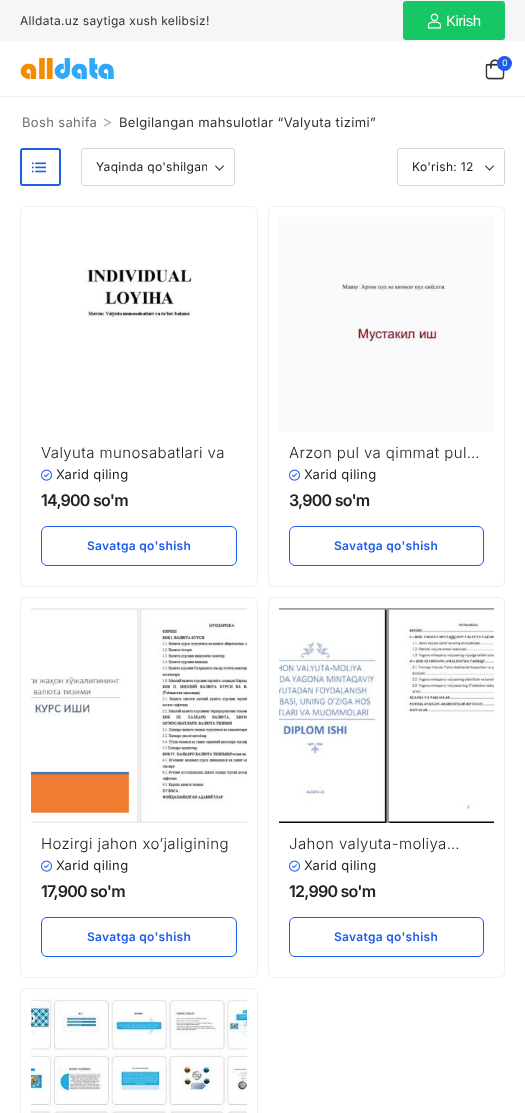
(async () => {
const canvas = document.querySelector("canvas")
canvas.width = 525
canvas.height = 1113
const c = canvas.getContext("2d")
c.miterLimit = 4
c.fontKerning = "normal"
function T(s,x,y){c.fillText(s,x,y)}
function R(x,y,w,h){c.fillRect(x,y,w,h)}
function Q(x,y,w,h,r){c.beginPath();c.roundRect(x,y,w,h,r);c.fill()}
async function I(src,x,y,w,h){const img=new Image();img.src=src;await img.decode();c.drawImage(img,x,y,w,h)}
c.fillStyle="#fff"
R(0,0,525,1113)
c.fillStyle="#eee"
R(0,96,525,1)
c.fillStyle="#f5f6f8"
R(0,0,525,41)
c.letterSpacing="0.3px"
c.font="12px Inter"
c.fillStyle="#333"
T("Alldata.uz saytiga xush kelibsiz!",20,25)
c.fillStyle="#17c764"
Q(403,1,102,39,3)
await I("1.png",427,13,15,16)
c.letterSpacing="-0.5px"
c.font="15px Liberation Sans"
c.fillStyle="#fff"
T("Kirish",446,26)
await I("2.png",20,58,94,22)
await I("3.png",485,59,20,21)
c.fillStyle="#1e5cea"
c.beginPath()
c.arc(504.5,63.5,7.5,0,7)
c.fill()
c.font="9px Poppins"
c.fillStyle="#fff"
T("0",502,66)
c.letterSpacing="0.35px"
c.font="13px Inter"
c.fillStyle="#707070"
T("Bosh sahifa",22,127)
c.font="16px Inter"
c.fillStyle="#adadad"
T(">",102,127)
c.font="13px Inter"
c.fillStyle="#333"
T("Belgilangan mahsulotlar “Valyuta tizimi”",119,127)
c.beginPath()
c.roundRect(21,149,39,36,2)
c.strokeStyle="#1e5cea"
c.lineWidth=2
c.stroke()
await I("4.png",32,162,14,11)
await I("5.png",215,165,9,6)
c.beginPath()
c.roundRect(81.5,148.5,153,37,2.5)
c.strokeStyle="#d7d7d7"
c.lineWidth=1
c.stroke()
c.save()
c.beginPath()
c.rect(96,158,111,18)
c.clip()
c.letterSpacing="0.3px"
c.font="12px Inter"
c.fillStyle="#222"
T("Yaqinda qo'shilgan",96,171)
c.restore()
await I("5.png",485,165,9,6)
c.beginPath()
c.roundRect(397.5,148.5,107,37,2.5)
c.stroke()
c.letterSpacing="0.3px"
c.font="12px Inter"
c.fillStyle="#222"
T("Ko'rish: 12",412,171)
c.beginPath()
c.roundRect(20.5,206.5,237,380,5.5)
c.strokeStyle="#eee"
c.stroke()
await I("6.png",83,268,109,52)
c.letterSpacing="0.4px"
c.font="300 15px Inter"
T("Valyuta munosabatlari va",41,458)
await I("7.png",41,469,11,12)
c.letterSpacing="0.35px"
c.font="13px Inter"
T("Xarid qiling",56,479)
c.letterSpacing="-0.75px"
c.font="600 16px Inter"
T("14,900 so'm",41,506)
c.beginPath()
c.roundRect(41.5,526.5,195,39,5.5)
c.strokeStyle="#1e5cea"
c.stroke()
c.letterSpacing="0.3px"
c.font="600 12px Inter"
c.fillStyle="#1e5cea"
T("Savatga qo'shish",87,550)
c.beginPath()
c.roundRect(268.5,206.5,236,380,5.5)
c.strokeStyle="#eee"
c.stroke()
await I("8.png",279,217,215,215)
c.letterSpacing="0.4px"
c.font="300 15px Inter"
c.fillStyle="#222"
T("Arzon pul va qimmat pul…",289,458)
await I("7.png",289,469,11,12)
c.letterSpacing="0.35px"
c.font="13px Inter"
T("Xarid qiling",304,479)
c.letterSpacing="-0.75px"
c.font="600 16px Inter"
T("3,900 so'm",289,506)
c.beginPath()
c.roundRect(289.5,526.5,194,39,5.5)
c.strokeStyle="#1e5cea"
c.stroke()
c.letterSpacing="0.3px"
c.font="600 12px Inter"
c.fillStyle="#1e5cea"
T("Savatga qo'shish",334,550)
c.beginPath()
c.roundRect(20.5,597.5,237,380,5.5)
c.strokeStyle="#eee"
c.stroke()
await I("9.png",31,608,216,215)
c.letterSpacing="0.4px"
c.font="300 15px Inter"
c.fillStyle="#222"
T("Hozirgi jahon xo’jaligining",41,849)
await I("7.png",41,860,11,12)
c.letterSpacing="0.35px"
c.font="13px Inter"
T("Xarid qiling",56,870)
c.letterSpacing="-0.75px"
c.font="600 16px Inter"
T("17,900 so'm",41,897)
c.beginPath()
c.roundRect(41.5,917.5,195,39,5.5)
c.strokeStyle="#1e5cea"
c.stroke()
c.letterSpacing="0.3px"
c.font="600 12px Inter"
c.fillStyle="#1e5cea"
T("Savatga qo'shish",87,941)
c.beginPath()
c.roundRect(268.5,597.5,236,380,5.5)
c.strokeStyle="#eee"
c.stroke()
await I("10.png",279,608,215,215)
c.letterSpacing="0.4px"
c.font="300 15px Inter"
c.fillStyle="#222"
T("Jahon valyuta-moliya…",289,849)
await I("7.png",289,860,11,12)
c.letterSpacing="0.35px"
c.font="13px Inter"
T("Xarid qiling",304,870)
c.letterSpacing="-0.75px"
c.font="600 16px Inter"
T("12,990 so'm",289,897)
c.beginPath()
c.roundRect(289.5,917.5,194,39,5.5)
c.strokeStyle="#1e5cea"
c.stroke()
c.letterSpacing="0.3px"
c.font="600 12px Inter"
c.fillStyle="#1e5cea"
T("Savatga qo'shish",334,941)
c.beginPath()
c.roundRect(20.5,988.5,237,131,5.5)
c.strokeStyle="#eee"
c.stroke()
await I("11.png",31,999,216,114)
})()
